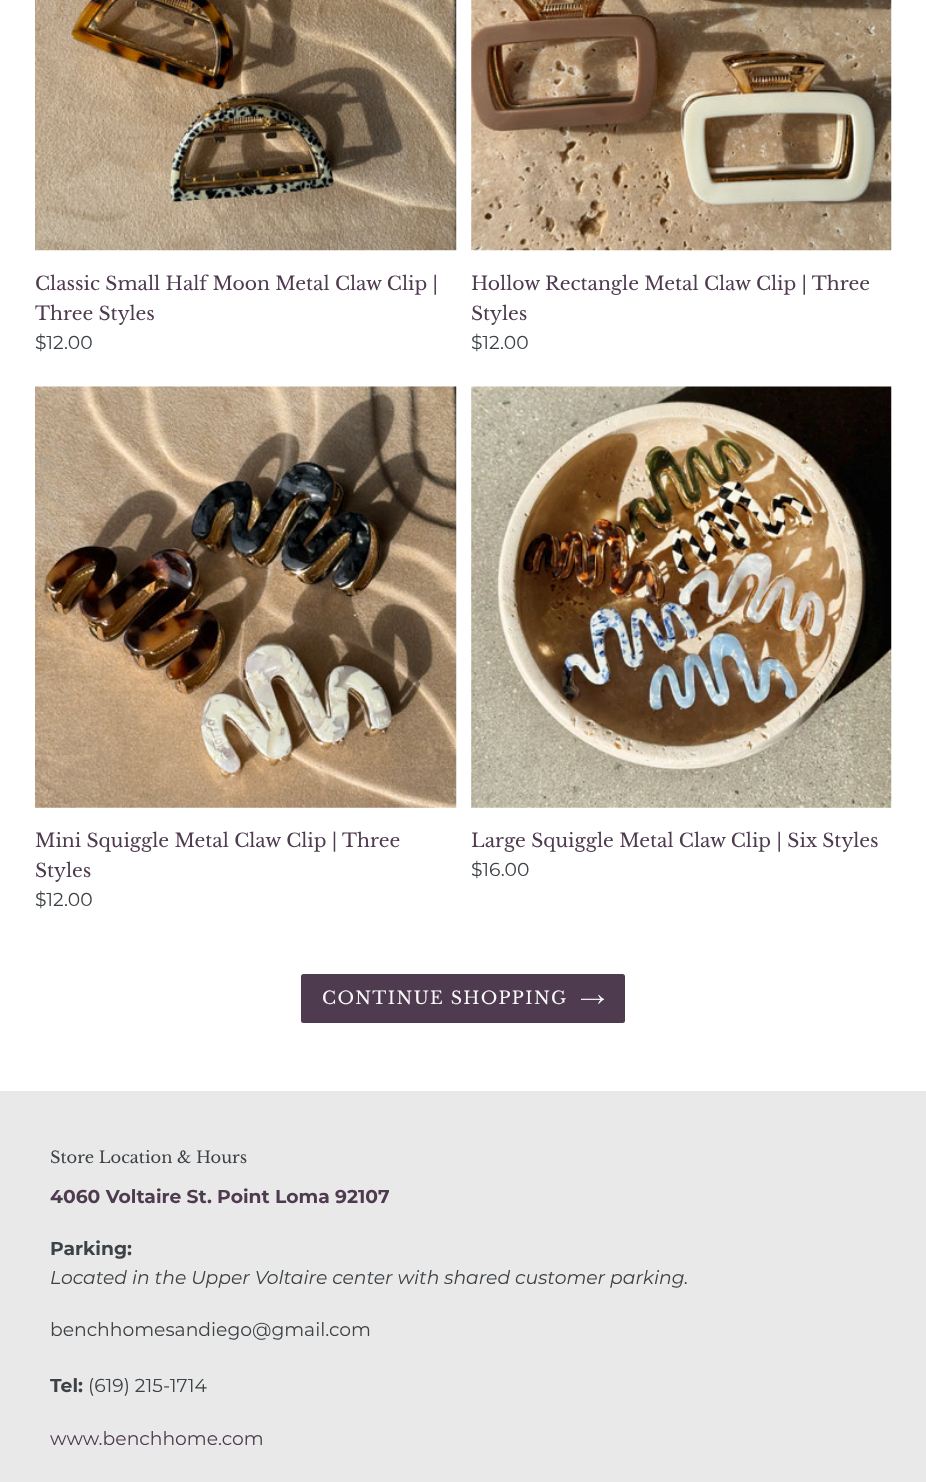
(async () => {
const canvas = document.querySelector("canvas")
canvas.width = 926
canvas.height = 1482
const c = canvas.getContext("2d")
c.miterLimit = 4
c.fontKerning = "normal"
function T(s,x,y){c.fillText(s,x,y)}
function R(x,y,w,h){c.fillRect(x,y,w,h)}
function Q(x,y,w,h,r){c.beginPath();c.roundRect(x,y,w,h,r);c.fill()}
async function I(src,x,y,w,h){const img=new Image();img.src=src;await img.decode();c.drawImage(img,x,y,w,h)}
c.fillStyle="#fff"
R(0,0,926,1482)
await I("1.png",35,0,422,251)
c.font="18.75px Libre Baskerville"
c.fillStyle="#4f3b4f"
T("Classic Small Half Moon Metal Claw Clip |",35,290)
T("Three Styles",35,320)
c.font="18.75px Montserrat"
c.fillStyle="#3d4246"
T("$12.00",35,349)
await I("2.png",471,0,421,251)
c.font="18.75px Libre Baskerville"
c.fillStyle="#4f3b4f"
T("Hollow Rectangle Metal Claw Clip | Three",471,290)
T("Styles",471,320)
c.font="18.75px Montserrat"
c.fillStyle="#3d4246"
T("$12.00",471,349)
await I("3.png",35,386,422,422)
c.font="18.75px Libre Baskerville"
c.fillStyle="#4f3b4f"
T("Mini Squiggle Metal Claw Clip | Three",35,847)
T("Styles",35,877)
c.font="18.75px Montserrat"
c.fillStyle="#3d4246"
T("$12.00",35,906)
await I("4.png",471,386,421,422)
c.font="18.75px Libre Baskerville"
c.fillStyle="#4f3b4f"
T("Large Squiggle Metal Claw Clip | Six Styles",471,847)
c.font="18.75px Montserrat"
c.fillStyle="#3d4246"
T("$16.00",471,876)
c.fillStyle="#4f3b4f"
Q(301,974,324,49,2.5)
c.letterSpacing="1.4px"
c.font="17.5px Libre Baskerville"
c.fillStyle="#fafafa"
T("CONTINUE SHOPPING",322,1004)
await I("5.png",580,994,24,10)
c.fillStyle="#e9e9e9"
R(0,1091,926,391)
c.letterSpacing="0px"
c.font="16.25px Libre Baskerville"
c.fillStyle="#3d4246"
T("Store Location & Hours",50,1163)
c.font="bold 18.75px Montserrat"
c.fillStyle="#4f3b4f"
T("4060 Voltaire St. Point Loma 92107",50,1203)
c.fillStyle="#3d4246"
T("Parking:",50,1255)
c.font="italic 18.75px Montserrat"
T("Located in the Upper Voltaire center with shared customer parking.",50,1284)
c.font="18.75px Montserrat"
T("benchhomesandiego@gmail.com",50,1336)
c.font="bold 18.75px Montserrat"
T("Tel:",50,1392)
c.font="18.75px Montserrat"
T("(619) 215-1714",88,1392)
c.fillStyle="#4f3b4f"
T("www.benchhome.com",50,1445)
})()
